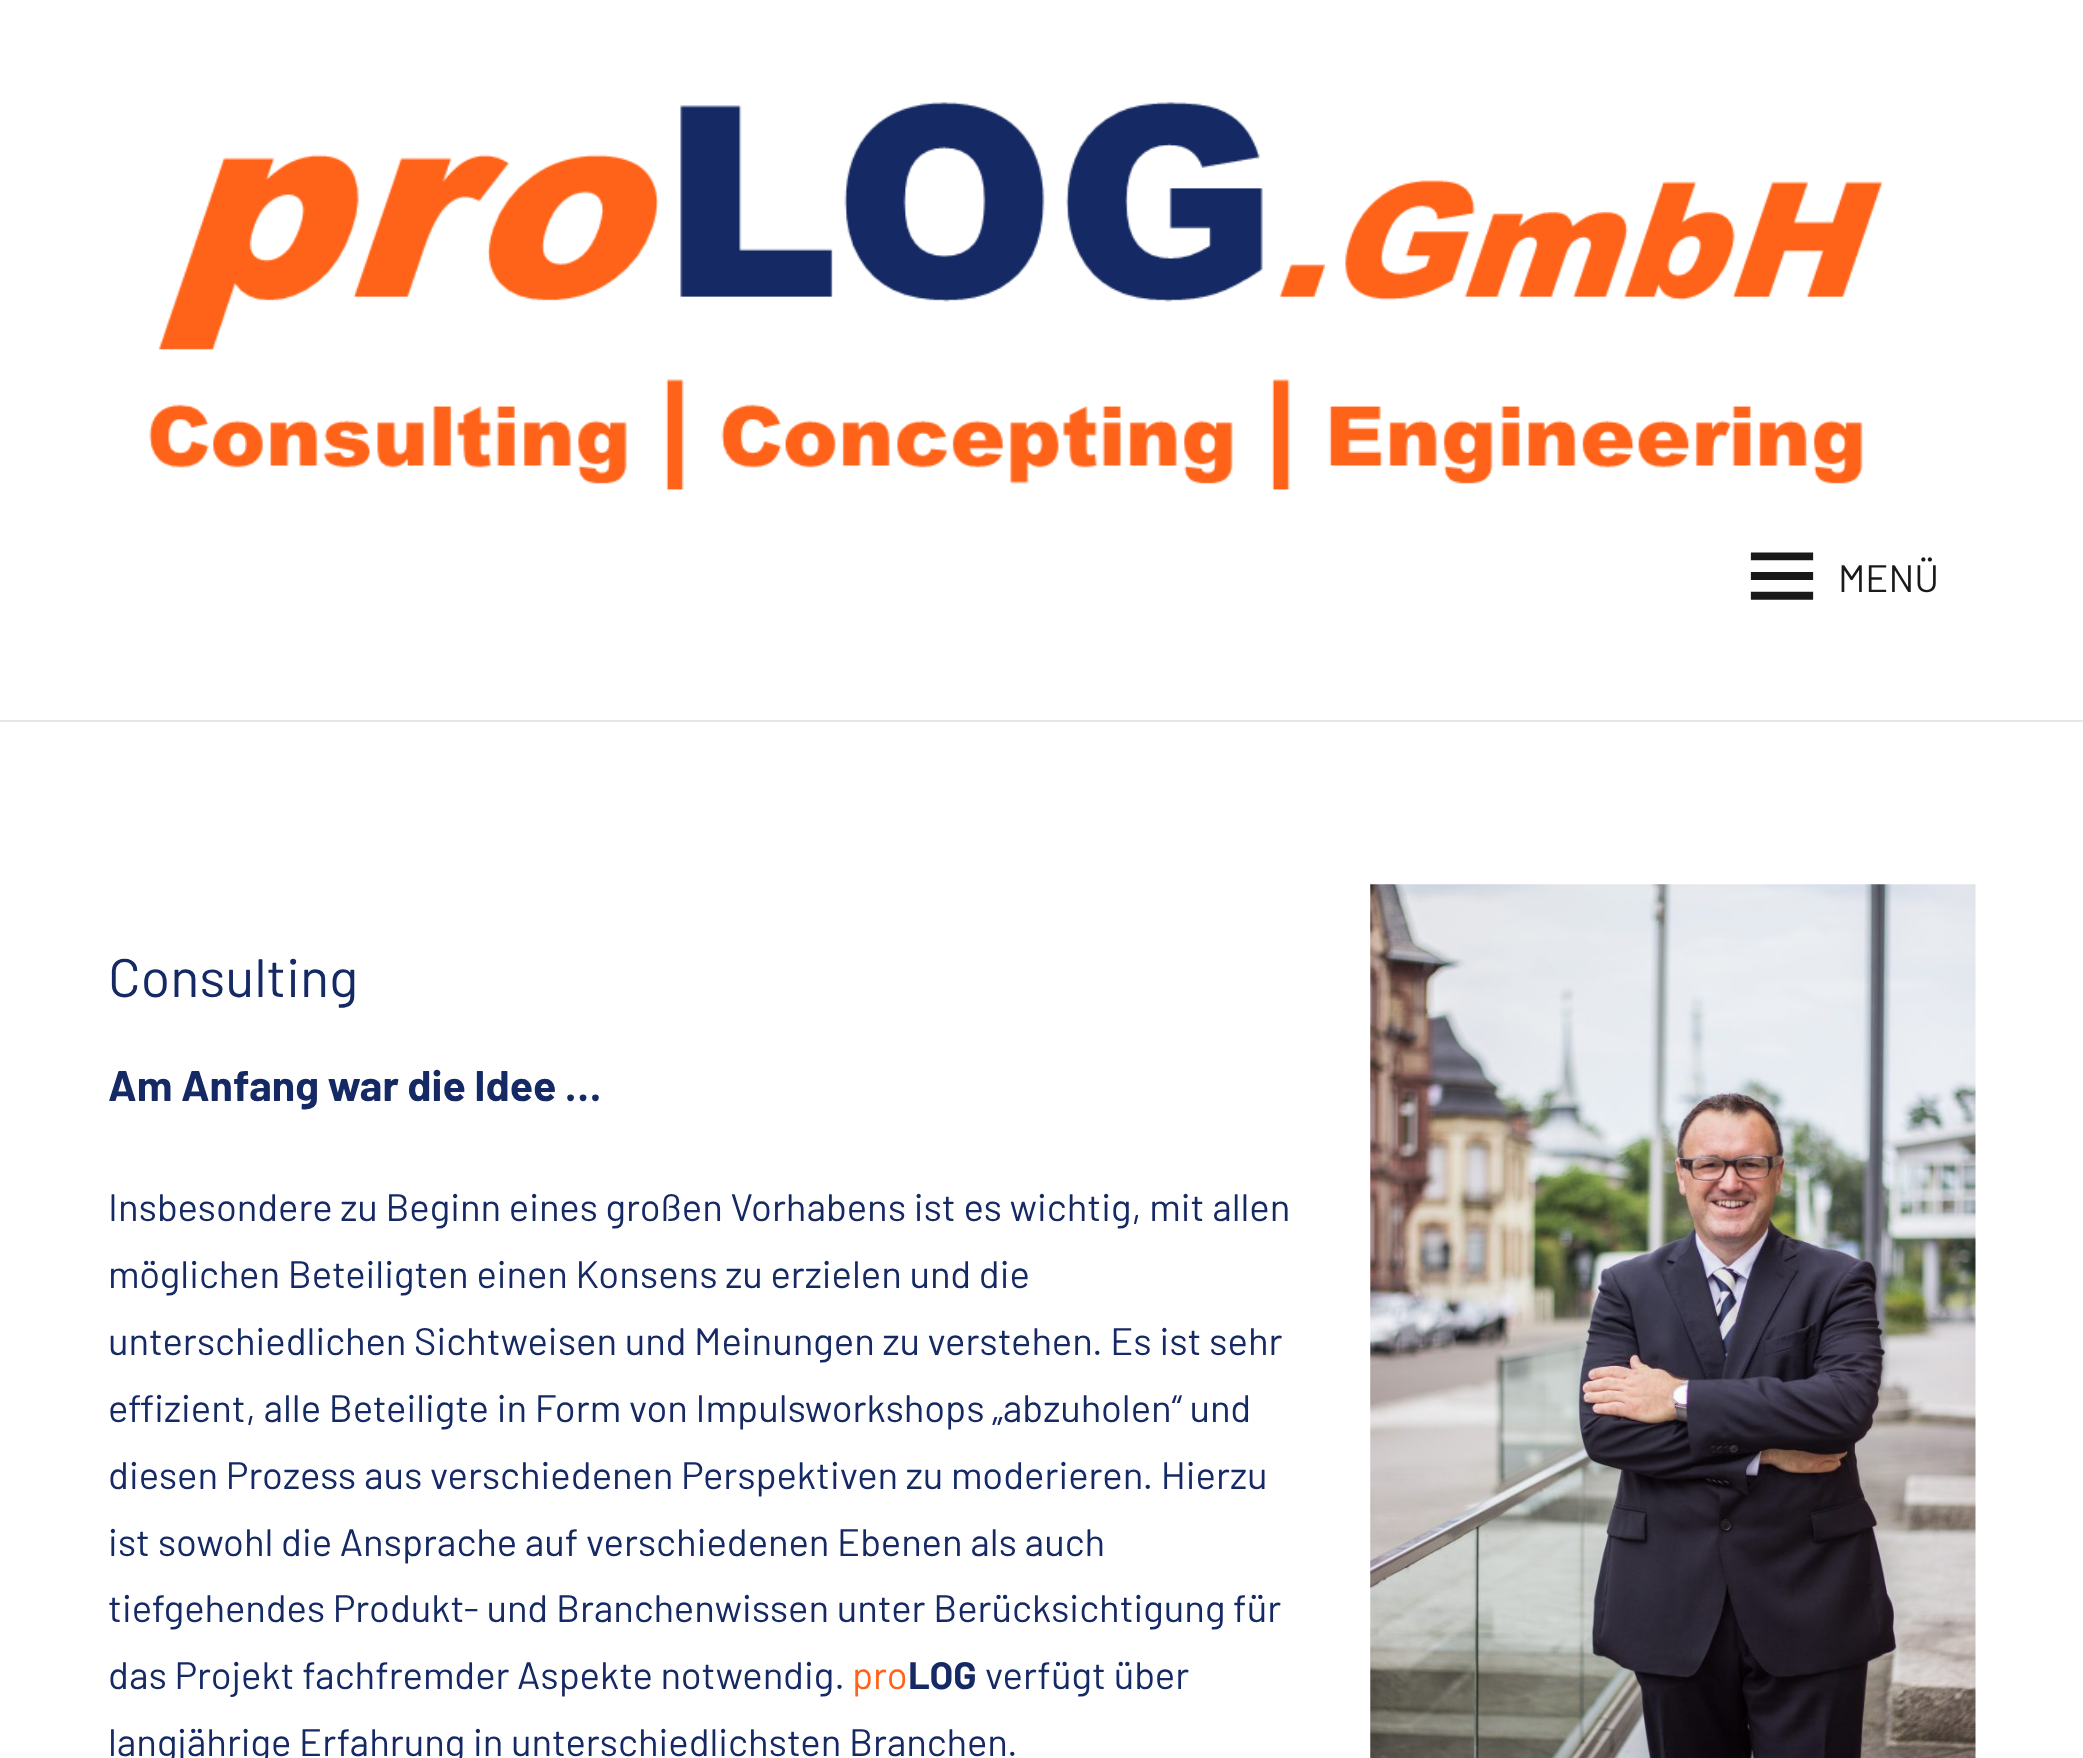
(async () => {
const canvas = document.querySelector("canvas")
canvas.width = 2083
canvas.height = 1758
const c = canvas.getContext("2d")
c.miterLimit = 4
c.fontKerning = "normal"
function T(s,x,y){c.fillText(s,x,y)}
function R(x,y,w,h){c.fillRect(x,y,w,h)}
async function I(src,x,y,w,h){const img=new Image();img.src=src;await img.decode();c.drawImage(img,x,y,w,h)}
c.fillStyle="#fff"
R(0,0,2083,1758)
c.fillStyle="#e6e6e6"
R(0,720,2083,2)
await I("1.png",149,102,1734,388)
await I("2.png",1750,552,64,48)
c.font="38.25px Barlow"
c.fillStyle="#1a1a1a"
T("MENÜ",1838,592)
c.font="54px Barlow"
c.fillStyle="#152964"
T("Consulting",108,997)
c.font="bold 42.75px Barlow"
T("Am Anfang war die Idee …",108,1101)
c.font="38.25px Barlow"
T("Insbesondere zu Beginn eines großen Vorhabens ist es wichtig, mit allen",108,1221)
T("möglichen Beteiligten einen Konsens zu erzielen und die",108,1288)
T("unterschiedlichen Sichtweisen und Meinungen zu verstehen. Es ist sehr",108,1355)
T("effizient, alle Beteiligte in Form von Impulsworkshops „abzuholen“ und",108,1422)
T("diesen Prozess aus verschiedenen Perspektiven zu moderieren. Hierzu",108,1489)
T("ist sowohl die Ansprache auf verschiedenen Ebenen als auch",108,1556)
T("tiefgehendes Produkt- und Branchenwissen unter Berücksichtigung für",108,1622)
T("das Projekt fachfremder Aspekte notwendig.",108,1689)
c.fillStyle="#ff6319"
T("pro",852,1689)
c.font="bold 38.25px Barlow"
c.fillStyle="#152964"
T("LOG",908,1689)
c.font="38.25px Barlow"
T("verfügt über",985,1689)
T("langjährige Erfahrung in unterschiedlichsten Branchen.",108,1756)
await I("3.png",1370,884,606,874)
})()
